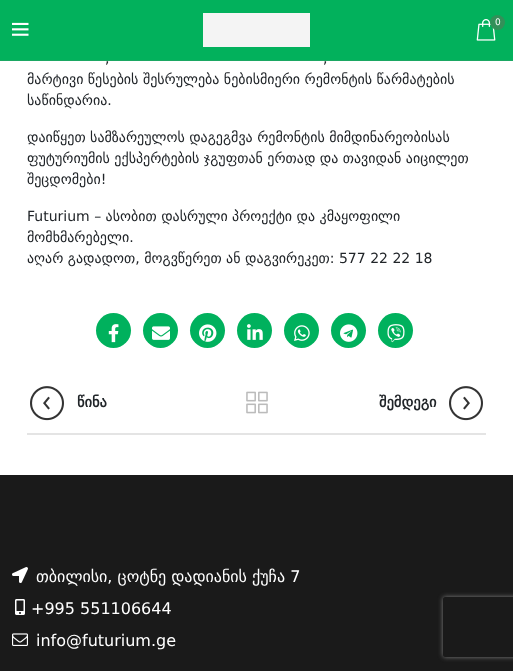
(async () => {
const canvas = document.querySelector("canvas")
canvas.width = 513
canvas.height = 671
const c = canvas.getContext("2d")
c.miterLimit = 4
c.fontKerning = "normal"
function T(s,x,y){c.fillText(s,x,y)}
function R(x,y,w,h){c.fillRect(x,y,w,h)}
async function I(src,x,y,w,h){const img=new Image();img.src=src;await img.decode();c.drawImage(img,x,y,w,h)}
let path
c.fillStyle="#fff"
R(0,0,513,671)
c.fillStyle="#02b15c"
R(0,0,513,60)
c.fillStyle="#1ba763"
R(0,60,513,1)
await I("1.png",12,22,17,14)
c.fillStyle="#f4f4f4"
R(203,13,107,34)
await I("2.png",476,19,20,22)
c.fillStyle="#339059"
c.beginPath()
c.arc(497.5,22.5,7.5,0,7)
c.fill()
c.font="9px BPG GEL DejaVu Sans"
c.fillStyle="#fff"
T("0",495,25)
c.font="14px BPG GEL DejaVu Sans"
c.fillStyle="#212529"
T(",",105,63)
T(",",323,63)
T("მარტივი წესების შესრულება ნებისმიერი რემონტის წარმატების",27,84)
T("საწინდარია.",27,105)
T("დაიწყეთ სამზარეულოს დაგეგმვა რემონტის მიმდინარეობისას",27,142)
T("ფუტურიუმის ექსპერტების ჯგუფთან ერთად და თავიდან აიცილეთ",27,163)
T("შეცდომები!",27,184)
T("Futurium – ასობით დასრული პროექტი და კმაყოფილი",27,221)
T("მომხმარებელი.",27,242)
T("აღარ გადადოთ, მოგვწერეთ ან დაგვირეკეთ: 577 22 22 18",27,263)
c.fillStyle="#00b15d"
c.beginPath()
c.arc(113.5,330.5,17.5,0,7)
c.fill()
await I("3.png",108,324,11,19)
c.beginPath()
c.arc(160.5,330.5,17.5,0,7)
c.fill()
await I("4.png",152,326,18,14)
c.beginPath()
c.arc(207.5,330.5,17.5,0,7)
c.fill()
await I("5.png",199,324,18,18)
c.beginPath()
c.arc(254.5,330.5,17.5,0,7)
c.fill()
await I("6.png",247,324,16,16)
c.beginPath()
c.arc(301.5,330.5,17.5,0,7)
c.fill()
await I("7.png",294,325,16,16)
c.beginPath()
c.arc(348.5,330.5,17.5,0,7)
c.fill()
await I("8.png",340,324,18,18)
c.beginPath()
c.arc(395.5,330.5,17.5,0,7)
c.fill()
await I("9.png",387,324,18,19)
c.fillStyle="#e4e4e4"
R(27,433,459,2)
await I("10.png",30,386,34,35)
c.font="bold 14.5px BPG GEL DejaVu Sans"
c.fillStyle="#212529"
T("წინა",77,407)
await I("11.png",246,391,22,23)
T("შემდეგი",379,407)
await I("12.png",449,386,34,35)
c.fillStyle="#1a1a1a"
R(0,475,513,196)
await I("13.png",12,567,16,16)
c.font="16px BPG GEL DejaVu Sans"
c.fillStyle="#fff"
T("თბილისი, ცოტნე დადიანის ქუჩა 7",36,582)
await I("14.png",15,599,10,16)
T("+995 551106644",31,614)
await I("15.png",12,633,16,13)
T("info@futurium.ge",36,646)
c.save()
path = new Path2D("M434 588h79v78h-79zm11 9h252c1 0 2 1 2 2v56c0 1-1 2-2 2h-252c-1 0-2-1-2-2v-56c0-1 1-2 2-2z")
c.clip(path,"evenodd")
c.fillStyle="#808080"
c.filter="blur(2.5px)"
c.beginPath()
c.roundRect(443,597,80,60,2)
c.fill()
c.filter="none"
c.restore()
})()
